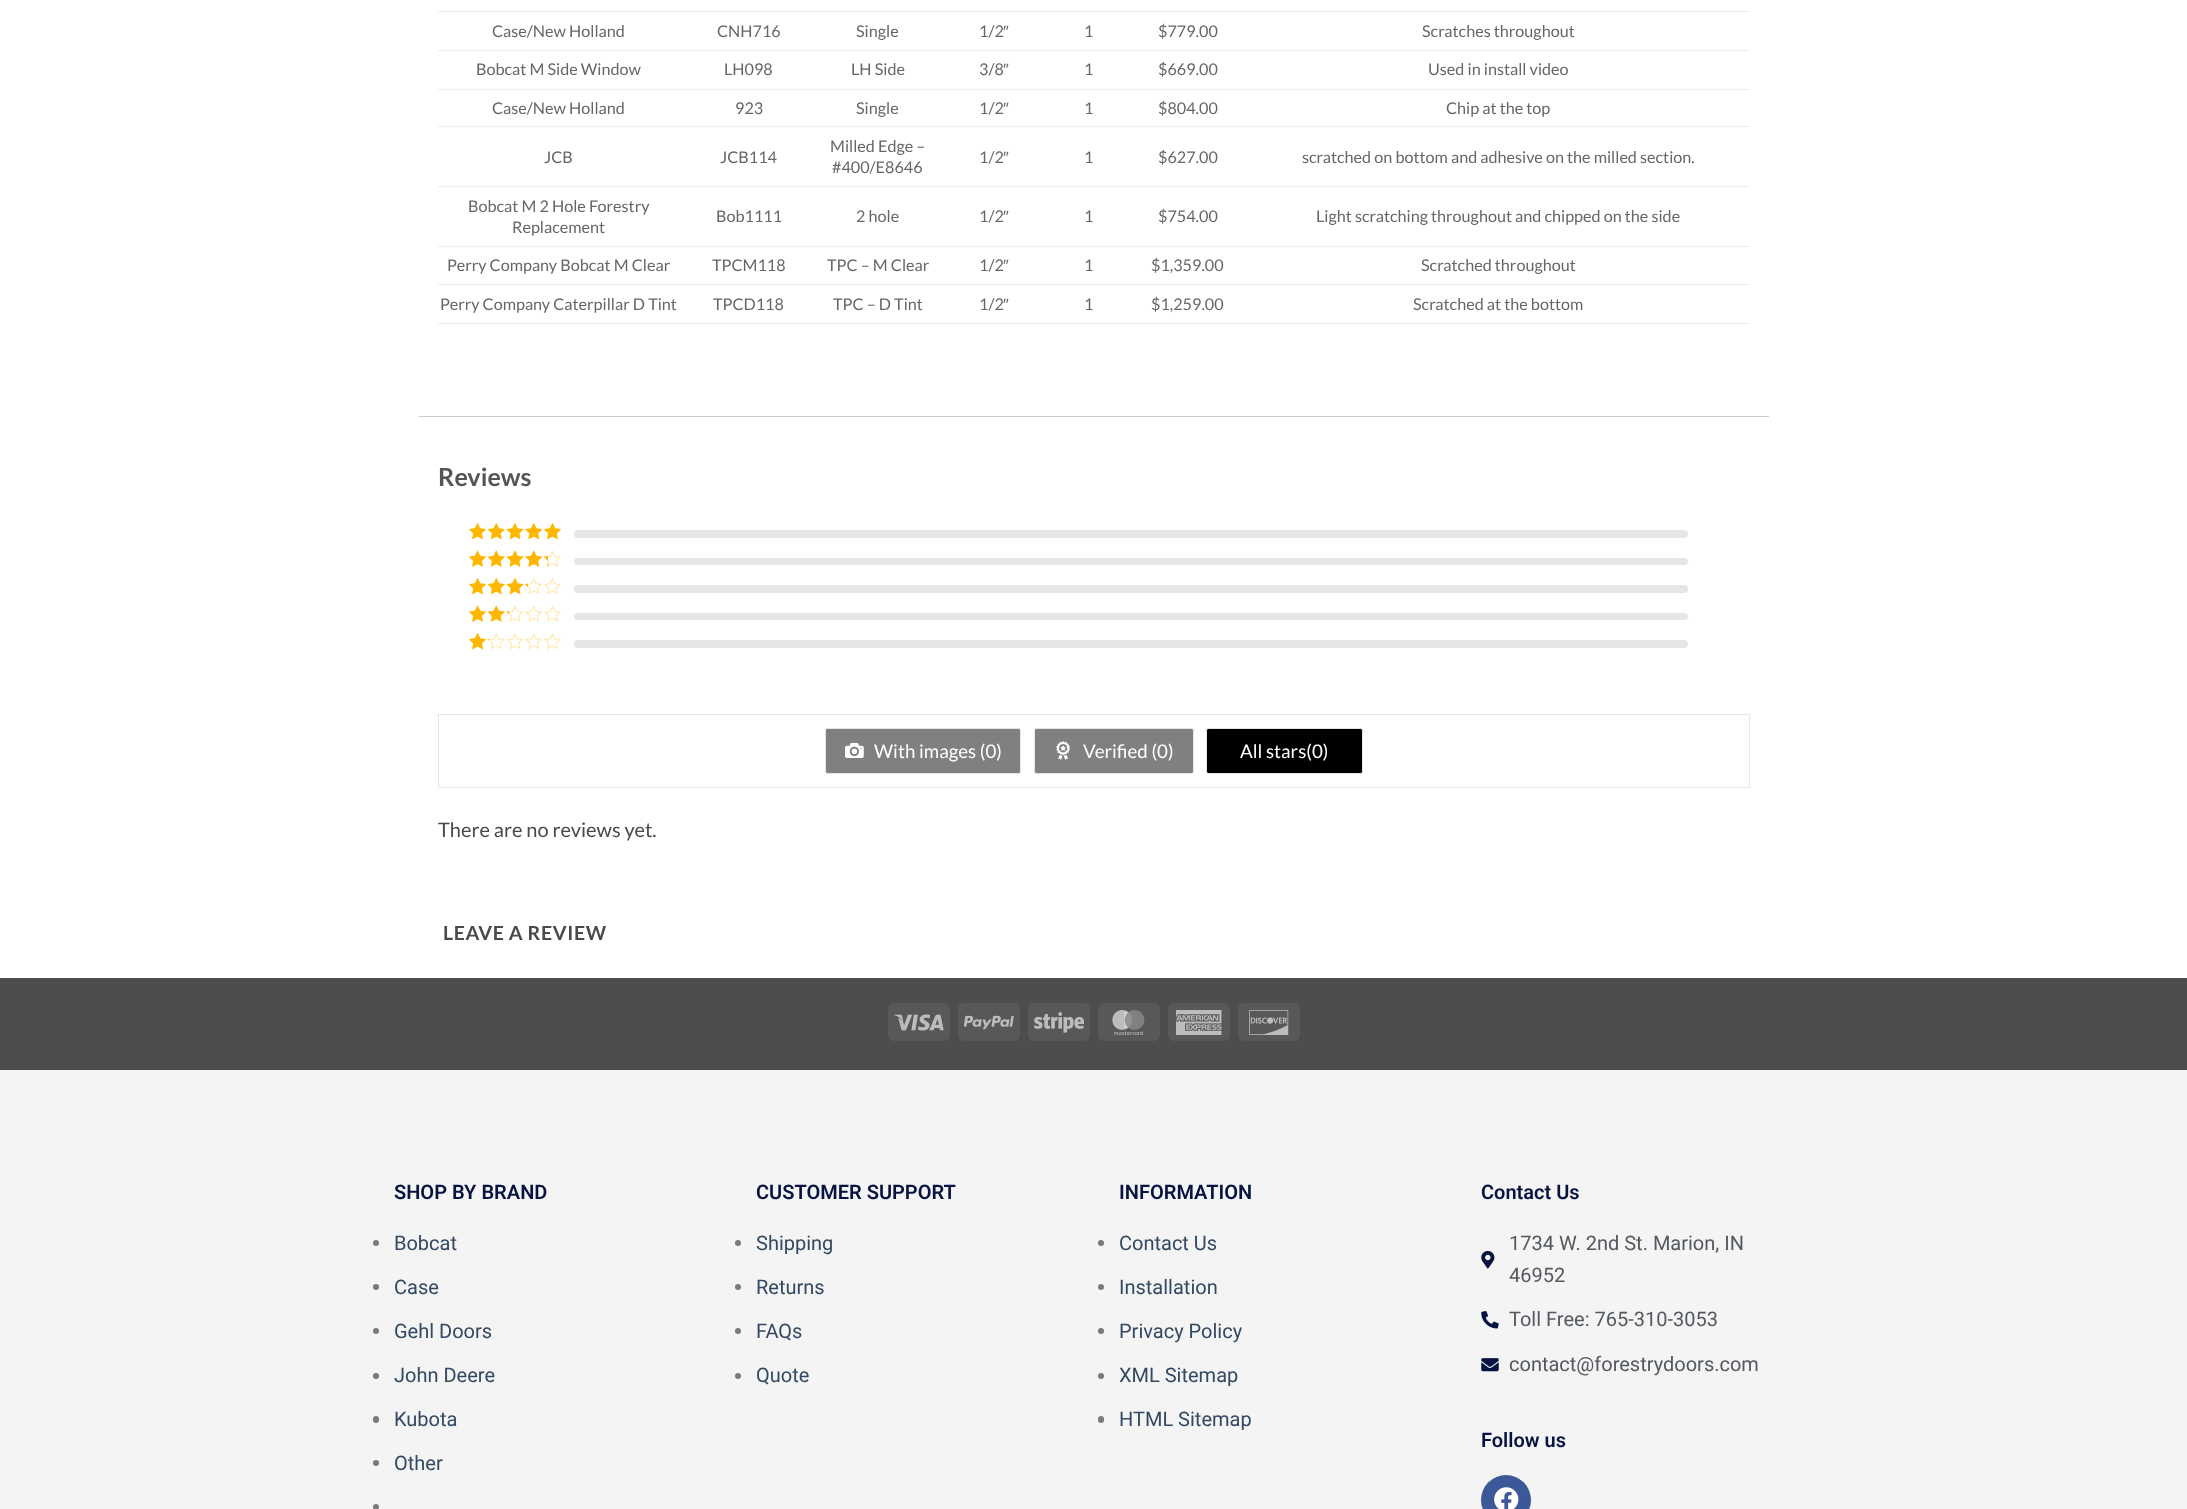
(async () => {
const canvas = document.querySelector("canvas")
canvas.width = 2187
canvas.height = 1509
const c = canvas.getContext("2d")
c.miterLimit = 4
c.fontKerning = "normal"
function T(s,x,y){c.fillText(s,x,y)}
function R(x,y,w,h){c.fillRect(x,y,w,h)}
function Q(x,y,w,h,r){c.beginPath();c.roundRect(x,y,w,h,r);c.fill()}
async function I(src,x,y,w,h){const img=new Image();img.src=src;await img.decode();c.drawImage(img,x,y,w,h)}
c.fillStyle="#fff"
R(0,0,2187,1509)
c.fillStyle="#ececec"
R(438,11,1312,1)
R(438,50,1312,1)
c.font="16.2px Lato"
c.fillStyle="#666"
T("Case/New Holland",492,37)
T("CNH716",717,37)
T("Single",856,37)
T("1/2",979,37)
c.font="16.2px Liberation Sans"
T("″",1003,37)
c.font="16.2px Lato"
T("1",1084,37)
T("$779.00",1158,37)
T("Scratches throughout",1422,37)
c.fillStyle="#ececec"
R(438,89,1312,1)
c.fillStyle="#666"
T("Bobcat M Side Window",476,75)
T("LH098",724,75)
T("LH Side",851,75)
T("3/8",979,75)
c.font="16.2px Liberation Sans"
T("″",1003,75)
c.font="16.2px Lato"
T("1",1084,75)
T("$669.00",1158,75)
T("Used in install video",1428,75)
c.fillStyle="#ececec"
R(438,126,1312,1)
c.fillStyle="#666"
T("Case/New Holland",492,114)
T("923",735,114)
T("Single",856,114)
T("1/2",979,114)
c.font="16.2px Liberation Sans"
T("″",1003,114)
c.font="16.2px Lato"
T("1",1084,114)
T("$804.00",1158,114)
T("Chip at the top",1446,114)
c.fillStyle="#ececec"
R(438,186,1312,1)
c.fillStyle="#666"
T("JCB",544,163)
T("JCB114",720,163)
T("Milled Edge –",830,152)
T("#400/E8646",832,173)
T("1/2",979,163)
c.font="16.2px Liberation Sans"
T("″",1003,163)
c.font="16.2px Lato"
T("1",1084,163)
T("$627.00",1158,163)
T("scratched on bottom and adhesive on the milled section.",1302,163)
c.fillStyle="#ececec"
R(438,246,1312,1)
c.fillStyle="#666"
T("Bobcat M 2 Hole Forestry",468,212)
T("Replacement",512,233)
T("Bob1111",716,222)
T("2 hole",856,222)
T("1/2",979,222)
c.font="16.2px Liberation Sans"
T("″",1003,222)
c.font="16.2px Lato"
T("1",1084,222)
T("$754.00",1158,222)
T("Light scratching throughout and chipped on the side",1316,222)
c.fillStyle="#ececec"
R(438,284,1312,1)
c.fillStyle="#666"
T("Perry Company Bobcat M Clear",447,271)
T("TPCM118",712,271)
T("TPC – M Clear",827,271)
T("1/2",979,271)
c.font="16.2px Liberation Sans"
T("″",1003,271)
c.font="16.2px Lato"
T("1",1084,271)
T("$1,359.00",1151,271)
T("Scratched throughout",1421,271)
c.fillStyle="#ececec"
R(438,323,1312,1)
c.fillStyle="#666"
T("Perry Company Caterpillar D Tint",440,310)
T("TPCD118",713,310)
T("TPC – D Tint",833,310)
T("1/2",979,310)
c.font="16.2px Liberation Sans"
T("″",1003,310)
c.font="16.2px Lato"
T("1",1084,310)
T("$1,259.00",1151,310)
T("Scratched at the bottom",1413,310)
c.fillStyle="#ccc"
R(419,416,1350,1)
c.font="bold 25px Lato"
c.fillStyle="#555"
T("Reviews",438,486)
await I("1.png",469,523,92,17)
await I("2.png",469,523,93,17)
c.fillStyle="#e6e6e6"
Q(574,530,1114,8,4)
await I("3.png",469,550,92,17)
await I("4.png",469,550,79,17)
Q(574,558,1114,7,3.5)
await I("1.png",469,578,92,17)
await I("5.png",469,578,59,17)
Q(574,585,1114,8,4)
await I("3.png",469,605,92,17)
await I("6.png",469,605,40,17)
Q(574,613,1114,7,3.5)
await I("1.png",469,633,92,17)
await I("7.png",469,633,20,17)
Q(574,640,1114,8,4)
c.strokeStyle="#e5e5e5"
c.strokeRect(438.5,714.5,1311,73)
c.fillStyle="#808080"
c.beginPath()
c.roundRect(825.5,728.5,195,45,2)
c.fill()
c.stroke()
await I("8.png",845,742,19,16)
c.font="18.75px Lato"
c.fillStyle="#fff"
T("With images (0)",874,758)
c.fillStyle="#808080"
c.beginPath()
c.roundRect(1034.5,728.5,159,45,2)
c.fill()
c.stroke()
await I("9.png",1056,741,14,19)
c.fillStyle="#fff"
T("Verified (0)",1083,758)
c.fillStyle="#000"
c.beginPath()
c.roundRect(1206.5,728.5,156,45,2)
c.fill()
c.stroke()
c.fillStyle="#fff"
T("All stars(0)",1240,758)
c.font="20px Lato"
c.fillStyle="#4a4a4a"
T("There are no reviews yet.",438,837)
c.letterSpacing="0.6px"
c.font="bold 19.5px Lato"
T("LEAVE A REVIEW",443,940)
c.fillStyle="#4d4d4d"
R(0,978,2187,92)
c.fillStyle="#585858"
Q(888,1003,62,38,6)
await I("10.png",894,1014,50,17)
Q(958,1003,62,38,6)
await I("11.png",964,1015,50,15)
Q(1028,1003,62,38,6)
await I("12.png",1034,1012,50,21)
Q(1098,1003,62,38,6)
await I("13.png",1112,1010,33,25)
Q(1168,1003,62,38,6)
await I("14.png",1176,1010,46,25)
Q(1238,1003,62,38,6)
await I("15.png",1249,1010,40,25)
c.fillStyle="#f4f4f4"
R(0,1070,2187,439)
c.letterSpacing="0px"
c.font="600 20px Roboto"
c.fillStyle="#071341"
T("SHOP BY BRAND",394,1199)
c.fillStyle="#7a7a7a"
c.beginPath()
c.arc(376,1243,3,0,7)
c.fill()
c.font="20px Roboto"
c.fillStyle="#334862"
T("Bobcat",394,1250)
c.fillStyle="#7a7a7a"
c.beginPath()
c.arc(376,1287,3,0,7)
c.fill()
c.fillStyle="#334862"
T("Case",394,1294)
c.fillStyle="#7a7a7a"
c.beginPath()
c.arc(376,1331,3,0,7)
c.fill()
c.fillStyle="#334862"
T("Gehl Doors",394,1338)
c.fillStyle="#7a7a7a"
c.beginPath()
c.arc(376,1376,3,0,7)
c.fill()
c.fillStyle="#334862"
T("John Deere",394,1382)
c.fillStyle="#7a7a7a"
Q(373,1416,6,7,3)
c.fillStyle="#334862"
T("Kubota",394,1426)
c.fillStyle="#7a7a7a"
c.beginPath()
c.arc(376,1463,3,0,7)
c.fill()
c.fillStyle="#334862"
T("Other",394,1470)
c.fillStyle="#7a7a7a"
c.beginPath()
c.arc(376,1507,3,0,7)
c.fill()
c.font="600 20px Roboto"
c.fillStyle="#071341"
T("CUSTOMER SUPPORT",756,1199)
c.fillStyle="#7a7a7a"
c.beginPath()
c.arc(738,1243,3,0,7)
c.fill()
c.font="20px Roboto"
c.fillStyle="#334862"
T("Shipping",756,1250)
c.fillStyle="#7a7a7a"
c.beginPath()
c.arc(738,1287,3,0,7)
c.fill()
c.fillStyle="#334862"
T("Returns",756,1294)
c.fillStyle="#7a7a7a"
c.beginPath()
c.arc(738,1331,3,0,7)
c.fill()
c.fillStyle="#334862"
T("FAQs",756,1338)
c.fillStyle="#7a7a7a"
c.beginPath()
c.arc(738,1376,3,0,7)
c.fill()
c.fillStyle="#334862"
T("Quote",756,1382)
c.font="600 20px Roboto"
c.fillStyle="#071341"
T("INFORMATION",1119,1199)
c.fillStyle="#7a7a7a"
c.beginPath()
c.arc(1101,1243,3,0,7)
c.fill()
c.font="20px Roboto"
c.fillStyle="#334862"
T("Contact Us",1119,1250)
c.fillStyle="#7a7a7a"
c.beginPath()
c.arc(1101,1287,3,0,7)
c.fill()
c.fillStyle="#334862"
T("Installation",1119,1294)
c.fillStyle="#7a7a7a"
c.beginPath()
c.arc(1101,1331,3,0,7)
c.fill()
c.fillStyle="#334862"
T("Privacy Policy",1119,1338)
c.fillStyle="#7a7a7a"
c.beginPath()
c.arc(1101,1376,3,0,7)
c.fill()
c.fillStyle="#334862"
T("XML Sitemap",1119,1382)
c.fillStyle="#7a7a7a"
Q(1098,1416,6,7,3)
c.fillStyle="#334862"
T("HTML Sitemap",1119,1426)
c.font="600 20px Roboto"
c.fillStyle="#071341"
T("Contact Us",1481,1199)
await I("16.png",1481,1250,14,19)
c.font="20px Roboto"
c.fillStyle="#54595f"
T("1734 W. 2nd St. Marion, IN",1509,1250)
T("46952",1509,1282)
await I("17.png",1481,1311,18,18)
T("Toll Free: 765-310-3053",1509,1326)
await I("18.png",1481,1358,18,14)
T("contact@forestrydoors.com",1509,1371)
c.font="600 20px Roboto"
c.fillStyle="#071341"
T("Follow us",1481,1447)
c.fillStyle="#3b5998"
c.beginPath()
c.arc(1506,1500,25,0,7)
c.fill()
await I("19.png",1494,1487,25,22)
})()
